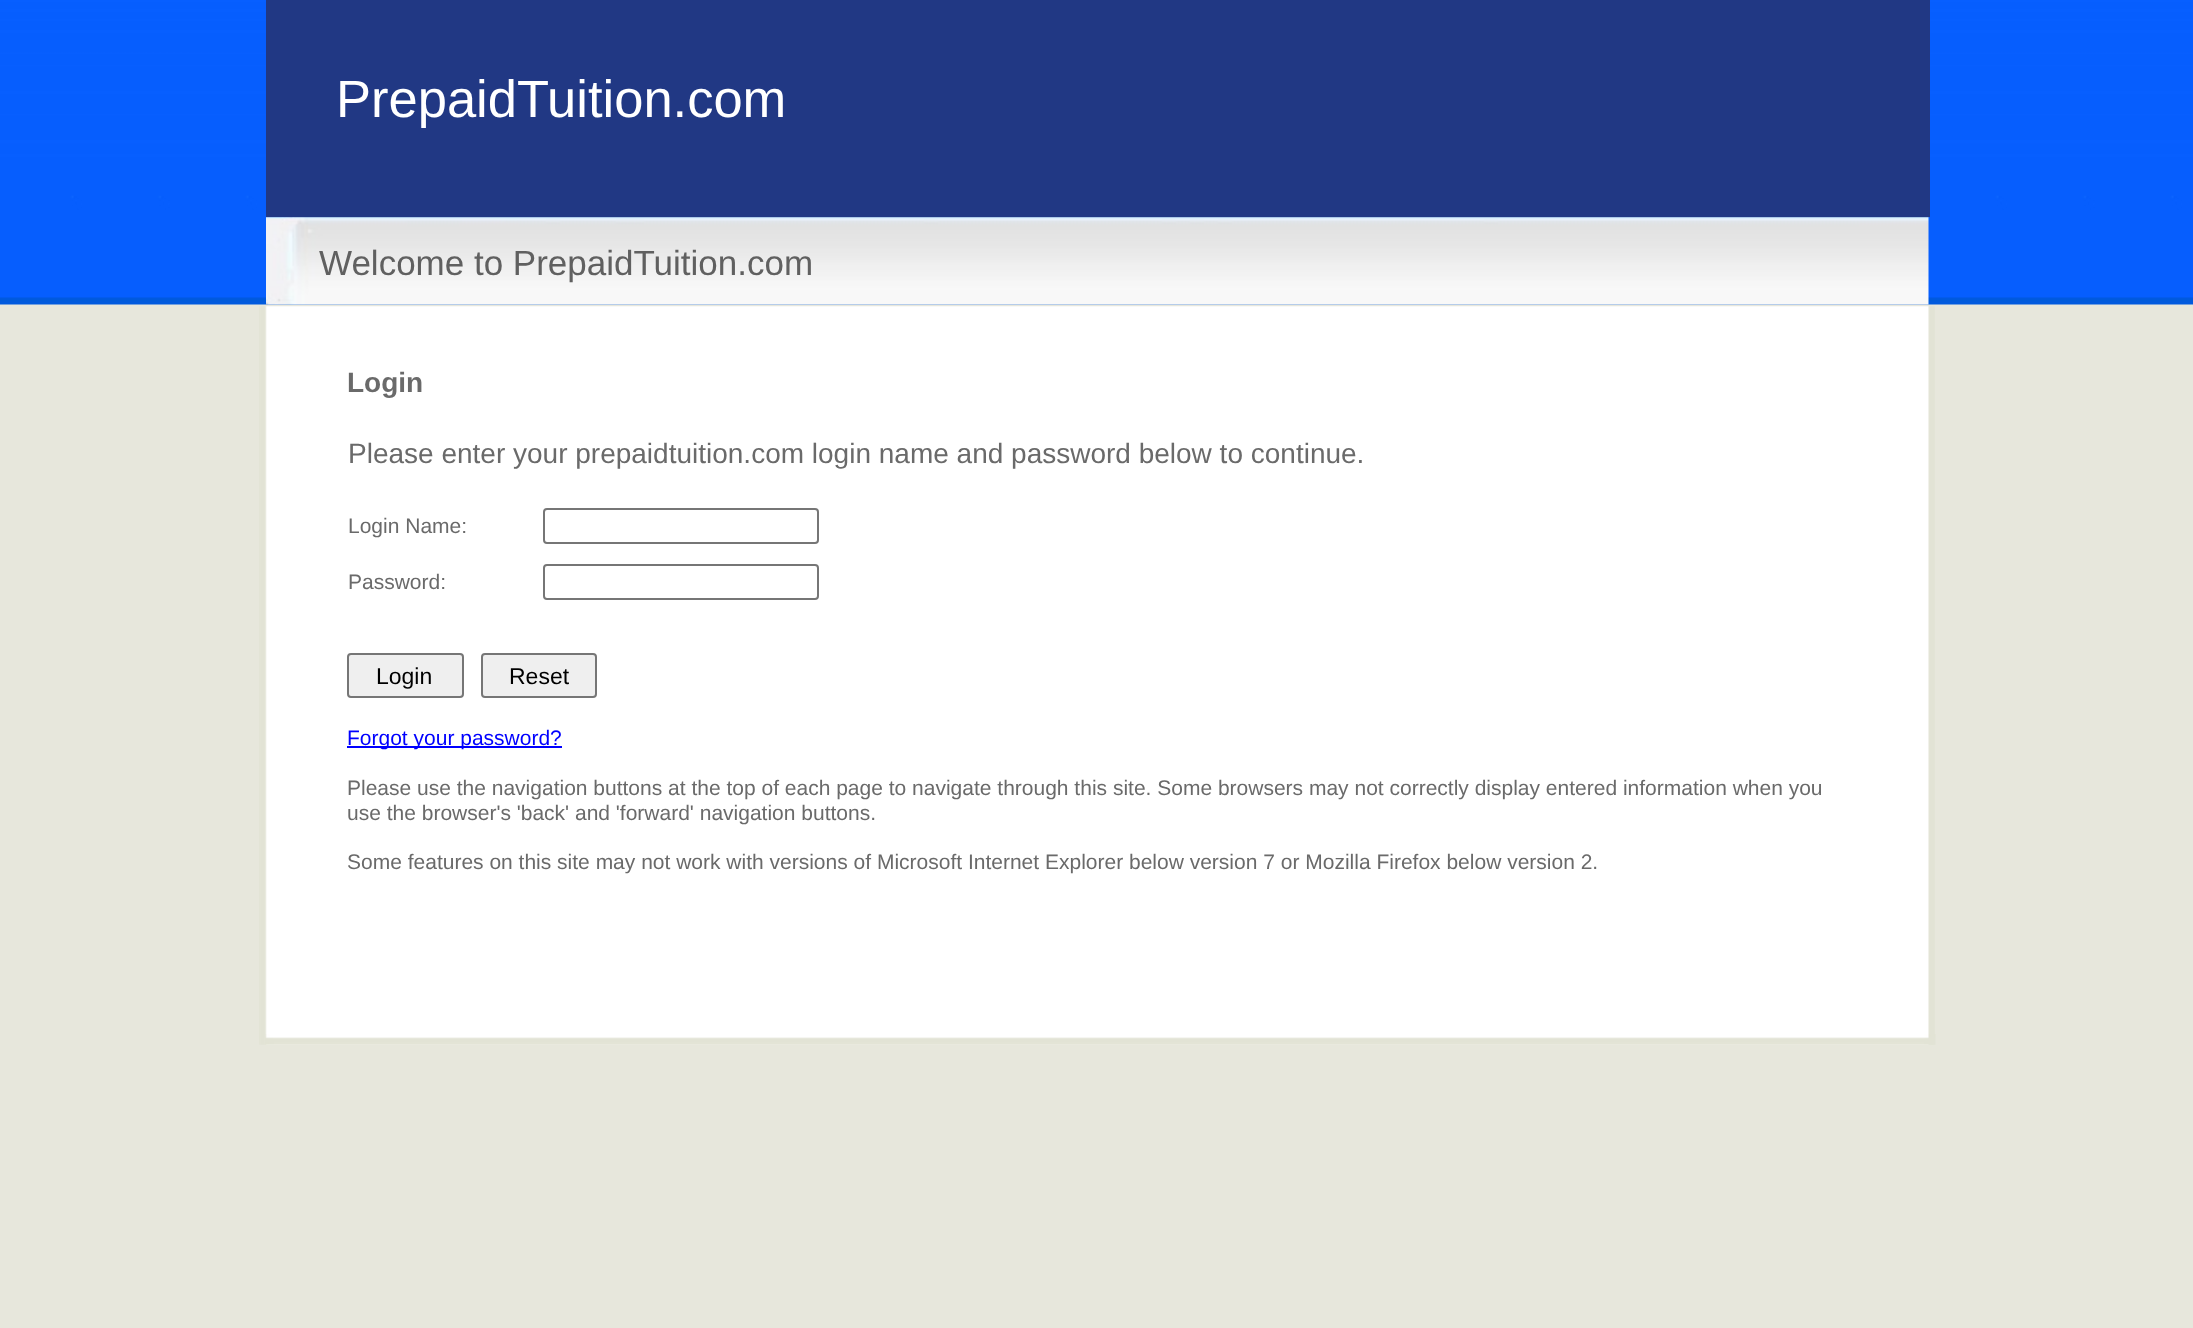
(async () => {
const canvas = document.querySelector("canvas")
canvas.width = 2193
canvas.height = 1328
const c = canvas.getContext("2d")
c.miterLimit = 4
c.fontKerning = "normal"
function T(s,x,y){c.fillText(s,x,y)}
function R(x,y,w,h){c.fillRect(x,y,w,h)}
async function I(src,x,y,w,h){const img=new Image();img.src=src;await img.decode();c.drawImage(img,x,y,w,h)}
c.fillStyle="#e7e7dc"
R(0,0,2193,1328)
await I("1.png",0,0,2193,305)
await I("2.png",266,217,1663,88)
c.fillStyle="#213884"
R(266,0,1664,217)
c.font="52.5px Liberation Sans"
c.fillStyle="#fff"
T("PrepaidTuition.com",336,117)
c.font="35px Liberation Sans"
c.fillStyle="#606060"
T("Welcome to PrepaidTuition.com",319,275)
await I("3.png",259,306,1676,739)
await I("4.png",265,1034,1671,11)
c.font="bold 28px Liberation Sans"
c.fillStyle="#6a6a6a"
T("Login",347,392)
c.font="28px Liberation Sans"
T("Please enter your prepaidtuition.com login name and password below to continue.",348,463)
c.font="21px Liberation Sans"
T("Login Name:",348,533)
c.beginPath()
c.roundRect(544,509,274,34,3)
c.strokeStyle="#767676"
c.lineWidth=2
c.stroke()
T("Password:",348,589)
c.beginPath()
c.roundRect(544,565,274,34,3)
c.stroke()
c.fillStyle="#efefef"
c.beginPath()
c.roundRect(348,654,115,43,3)
c.fill()
c.stroke()
c.font="23px Liberation Sans"
c.fillStyle="#000"
T("Login",376,684)
c.fillStyle="#efefef"
c.beginPath()
c.roundRect(482,654,114,43,3)
c.fill()
c.stroke()
c.fillStyle="#000"
T("Reset",509,684)
c.fillStyle="#00f"
R(347,746,215,2)
c.font="21px Liberation Sans"
T("Forgot your password?",347,745)
c.fillStyle="#6a6a6a"
T("Please use the navigation buttons at the top of each page to navigate through this site. Some browsers may not correctly display entered information when you",347,795)
T("use the browser's 'back' and 'forward' navigation buttons.",347,820)
T("Some features on this site may not work with versions of Microsoft Internet Explorer below version 7 or Mozilla Firefox below version 2.",347,869)
})()
